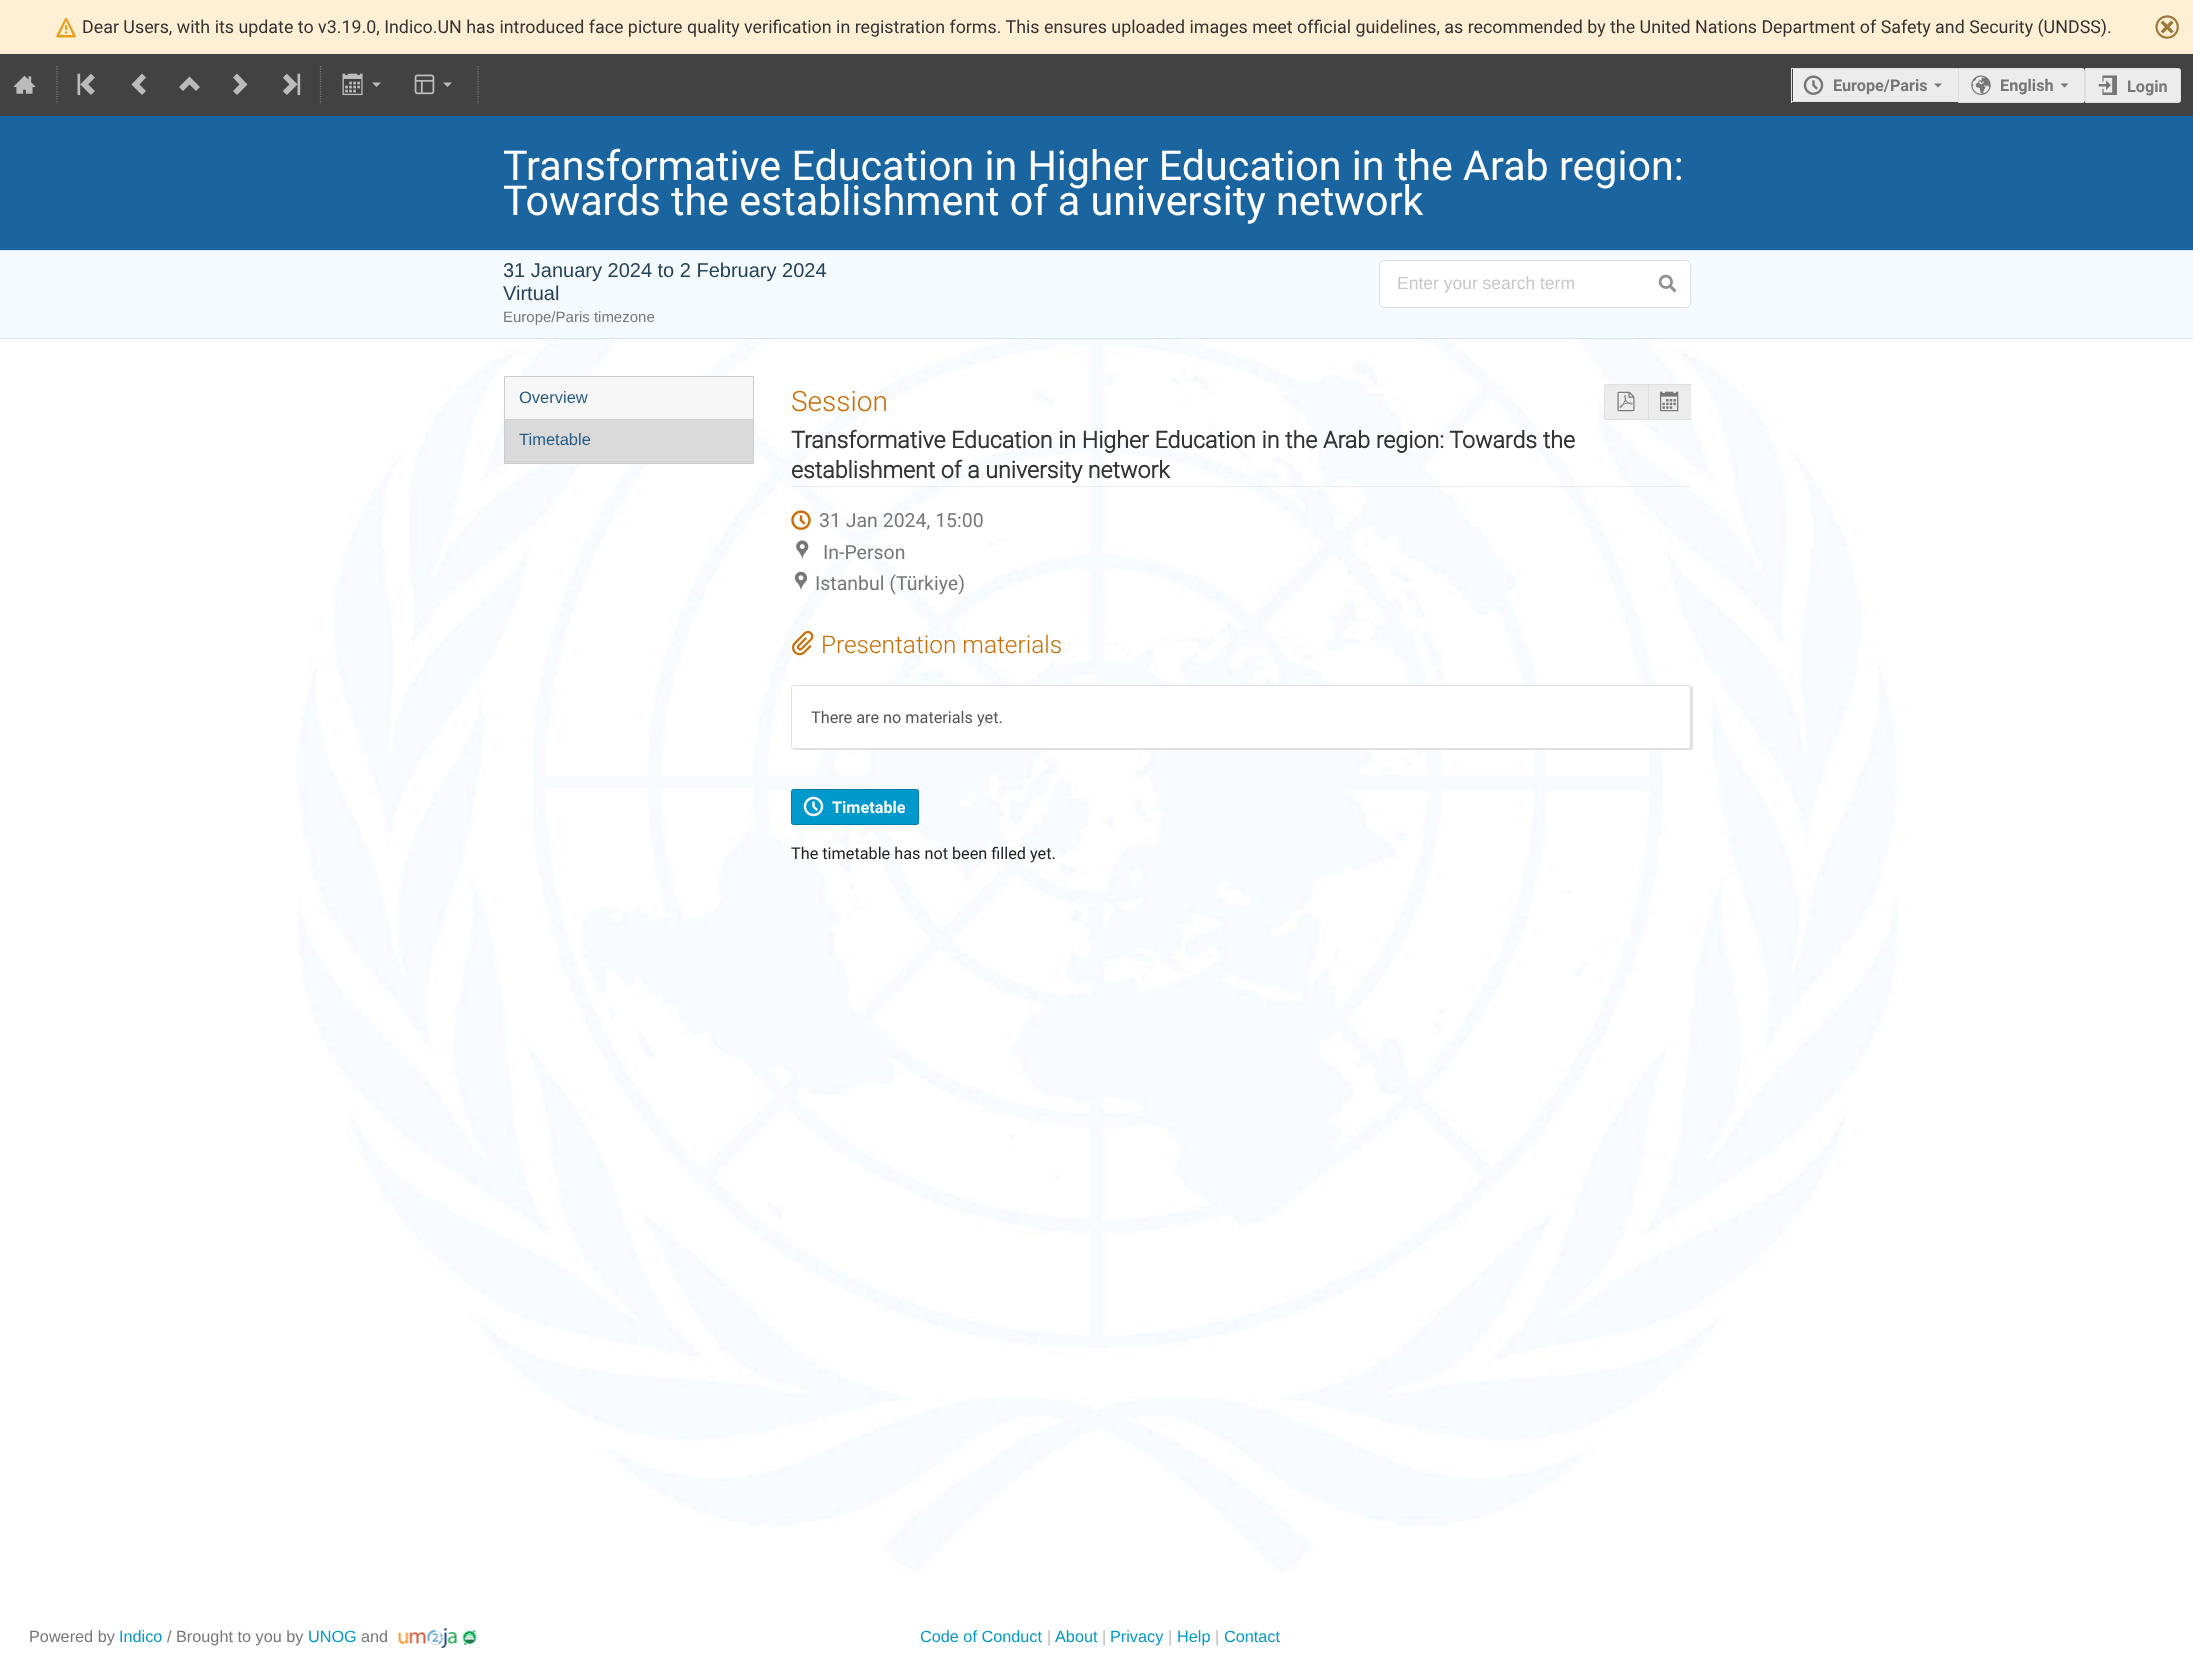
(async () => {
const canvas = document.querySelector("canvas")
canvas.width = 2193
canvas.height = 1675
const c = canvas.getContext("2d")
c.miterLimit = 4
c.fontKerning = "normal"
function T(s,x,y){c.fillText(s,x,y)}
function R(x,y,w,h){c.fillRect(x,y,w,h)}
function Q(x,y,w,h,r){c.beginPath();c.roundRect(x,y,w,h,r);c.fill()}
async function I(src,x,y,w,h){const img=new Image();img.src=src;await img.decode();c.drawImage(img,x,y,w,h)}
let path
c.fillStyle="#fff"
R(0,0,2193,1675)
c.fillStyle="#ffefd4"
R(0,0,2193,54)
await I("1.png",56,17,20,21)
c.font="17.88px Roboto"
c.fillStyle="#333"
T("Dear Users, with its update to v3.19.0, Indico.UN has introduced face picture quality verification in registration forms. This ensures uploaded images meet official guidelines, as recommended by the United Nations Department of Safety and Security (UNDSS).",82,33)
await I("2.png",2155,15,24,24)
c.fillStyle="#424242"
R(0,54,2193,62)
await I("3.png",13,75,23,19)
path = new Path2D("M57 66v38")
c.strokeStyle="#777"
c.lineWidth=1.2
c.setLineDash([1.25,1.25])
c.stroke(path)
await I("4.png",77,73,18,23)
c.fillStyle="#bbb"
path = new Path2D("M142 95l4-4l-6.5-6.5l6.5-7l-4-4l-10.5 11z")
c.fill(path)
path = new Path2D("M179 87l4 4l6.5-6.5l6.5 6.5l4-4l-10.5-10.5z")
c.fill(path)
path = new Path2D("M237 73.5l-4 4l6.5 7l-6.5 6.5l4 4l10.5-10.5z")
c.fill(path)
await I("5.png",282,73,19,23)
path = new Path2D("M320.5 66v38")
c.stroke(path)
await I("6.png",342,73,21,23)
path = new Path2D("M372 82.5l4.5 4.5l4.5-4.5z")
c.fill(path)
await I("7.png",414,74,21,21)
path = new Path2D("M443 82.5l4.5 4.5l4.5-4.5z")
c.fill(path)
path = new Path2D("M478 66v38")
c.stroke(path)
c.fillStyle="#ececec"
R(1793,69,165,32)
c.fillStyle="#dfdfdf"
R(1791,68,167,1)
R(1791,101,167,1)
R(1791,68,1,35)
await I("8.png",1803,75,21,20)
c.font="bold 16.25px Roboto"
c.fillStyle="#777"
T("Europe/Paris",1833,91)
path = new Path2D("M1934 83.5l4 4l4-4z")
c.fill(path)
c.fillStyle="#ececec"
c.beginPath()
c.roundRect(1958.5,68.5,126,34,[0,2,2,0])
c.fill()
c.strokeStyle="#dfdfdf"
c.lineWidth=1
c.setLineDash([])
c.stroke()
await I("9.png",1971,75,20,20)
c.fillStyle="#777"
T("English",2000,91)
path = new Path2D("M2060.5 83.5l4 4l4-4z")
c.fill(path)
c.fillStyle="#ececec"
c.beginPath()
c.roundRect(2085.5,68.5,95,34,[0,2,2,0])
c.fill()
c.stroke()
await I("10.png",2098,75,19,20)
c.fillStyle="#777"
T("Login",2127,92)
await I("11.png",297,339,1601,1234)
c.fillStyle="#1a64a0"
R(0,116,2193,134)
c.font="41.25px Roboto"
c.fillStyle="#fff"
T("Transformative Education in Higher Education in the Arab region:",503,180)
T("Towards the establishment of a university network",503,215)
c.fillStyle="#f5faff"
R(0,251,2193,87)
c.fillStyle="#d5e4f1"
R(0,250,2193,1)
R(0,338,2193,1)
c.font="20px Liberation Sans"
c.fillStyle="#24425a"
T("31 January 2024 to 2 February 2024",503,277)
T("Virtual",503,300)
c.font="15px Liberation Sans"
c.fillStyle="#777"
T("Europe/Paris timezone",503,322)
c.fillStyle="#fff"
Q(1379,260,312,48,5)
c.beginPath()
c.roundRect(1379.5,260.5,311,47,4.5)
c.strokeStyle="#22242626"
c.stroke()
c.font="17.5px 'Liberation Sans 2'"
c.fillStyle="#c7c7c7"
T("Enter your search term",1397,289)
await I("12.png",1658,274,19,19)
c.fillStyle="#f6f6f6"
R(505,377,248,42)
c.strokeStyle="#ccc"
c.strokeRect(504.5,376.5,249,87)
c.font="16.5px 'Liberation Sans 2'"
c.fillStyle="#275c86"
T("Overview",519,403)
c.fillStyle="#dadada"
R(505,420,248,43)
c.fillStyle="#d0d0d0"
R(505,419,248,1)
R(505,461,248,1)
c.fillStyle="#275c86"
T("Timetable",519,445)
c.fillStyle="#ebebeb"
R(791,486,900,1)
c.font="300 28px Roboto"
c.fillStyle="#cb6d04"
T("Session",791,411)
c.font="bold 23.2px 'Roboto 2'"
c.fillStyle="#333"
T("Transformative Education in Higher Education in the Arab region: Towards the",791,448)
T("establishment of a university network",791,478)
c.fillStyle="#ececec"
c.beginPath()
c.roundRect(1605,385,43,34,[1,0,0,1])
c.fill()
c.fillStyle="#dfdfdf"
R(1605,384,86,1)
R(1605,419,86,1)
R(1604,385,1,34)
await I("13.png",1617,391,18,21)
c.fillStyle="#ececec"
R(1649,385,42,34)
c.fillStyle="#dfdfdf"
R(1648,384,1,36)
await I("14.png",1660,391,19,21)
await I("15.png",791,510,20,20)
c.font="19.5px Roboto"
c.fillStyle="#777"
T("31 Jan 2024, 15:00",819,527)
await I("16.png",796,540,13,20)
T("In-Person",823,559)
await I("17.png",794,571,14,20)
T("Istanbul (Türkiye)",815,590)
await I("18.png",792,630,22,26)
c.font="300 24.4px Roboto"
c.fillStyle="#cb6d04"
T("Presentation materials",821,653)
c.fillStyle="#e1e1e1"
c.filter="blur(0.5px)"
c.beginPath()
c.roundRect(793,686,900,64,2.5)
c.fill()
c.filter="none"
c.fillStyle="#fff"
c.beginPath()
c.roundRect(791.5,685.5,899,63,2)
c.fill()
c.strokeStyle="#dfdfdf"
c.stroke()
c.font="16.25px Roboto"
c.fillStyle="#555"
T("There are no materials yet.",811,723)
c.fillStyle="#09c"
c.beginPath()
c.roundRect(791.5,789.5,127,35,2)
c.fill()
c.strokeStyle="#007cac"
c.stroke()
await I("19.png",803,796,21,21)
c.font="bold 16.25px Roboto"
c.fillStyle="#f9f9f9"
T("Timetable",832,813)
c.font="16.25px Roboto"
c.fillStyle="#212121"
T("The timetable has not been filled yet.",791,859)
c.font="16.25px Liberation Sans"
c.fillStyle="#777"
T("Powered by",29,1642)
c.fillStyle="#09c"
T("Indico",119,1642)
c.fillStyle="#777"
T("/ Brought to you by",167,1642)
c.fillStyle="#09c"
T("UNOG",308,1642)
c.fillStyle="#777"
T("and",361,1642)
await I("20.png",398,1628,81,20)
c.fillStyle="#09c"
T("Code of Conduct",920,1642)
c.fillStyle="#bbb"
T("|",1047,1642)
c.fillStyle="#09c"
T("About",1055,1642)
c.fillStyle="#bbb"
T("|",1102,1642)
c.fillStyle="#09c"
T("Privacy",1110,1642)
c.fillStyle="#bbb"
T("|",1168,1642)
c.fillStyle="#09c"
T("Help",1177,1642)
c.fillStyle="#bbb"
T("|",1215,1642)
c.fillStyle="#09c"
T("Contact",1224,1642)
})()
